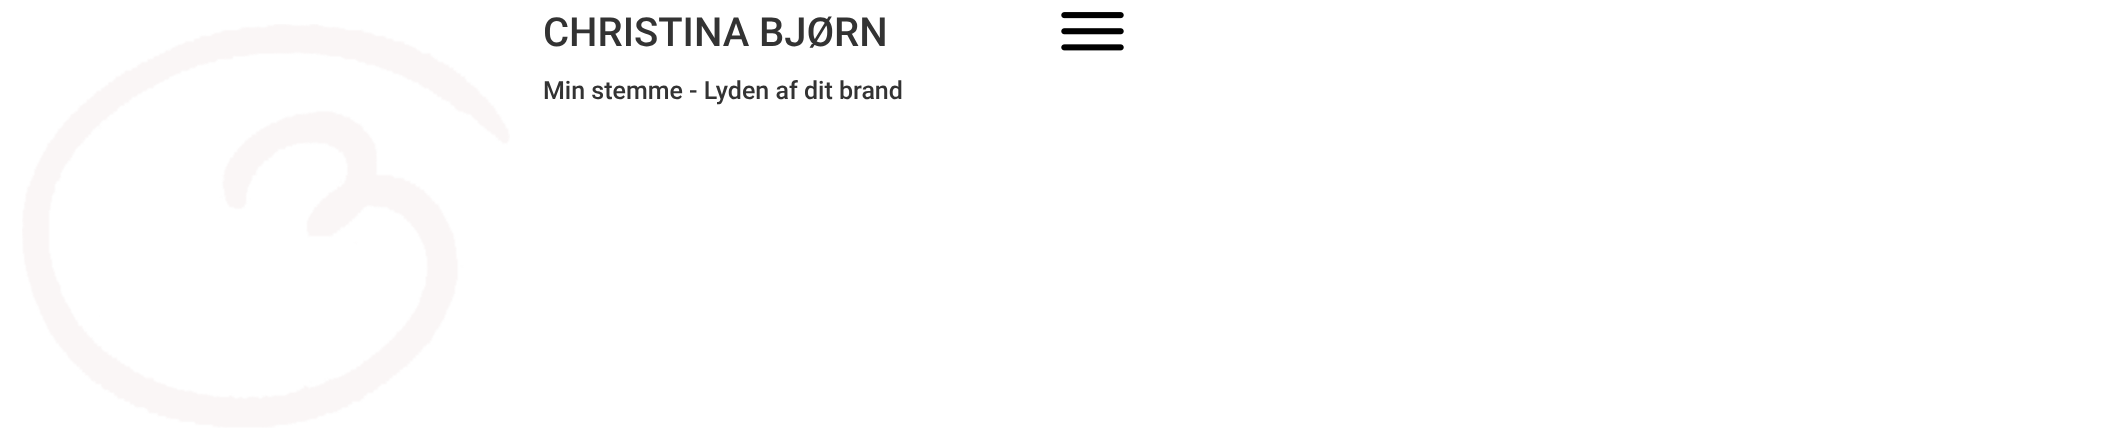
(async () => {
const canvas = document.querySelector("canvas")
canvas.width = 2121
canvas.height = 432
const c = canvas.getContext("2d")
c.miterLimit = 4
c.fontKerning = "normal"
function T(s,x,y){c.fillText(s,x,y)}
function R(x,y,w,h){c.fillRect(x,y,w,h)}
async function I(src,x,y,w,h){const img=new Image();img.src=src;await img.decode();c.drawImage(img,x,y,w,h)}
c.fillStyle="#fff"
R(0,0,2121,432)
await I("1.png",22,24,488,404)
c.font="500 40px Roboto"
c.fillStyle="#333"
T("CHRISTINA BJØRN",543,46)
c.font="500 25px Roboto"
T("Min stemme - Lyden af dit brand",543,99)
await I("2.png",1061,12,63,39)
})()
